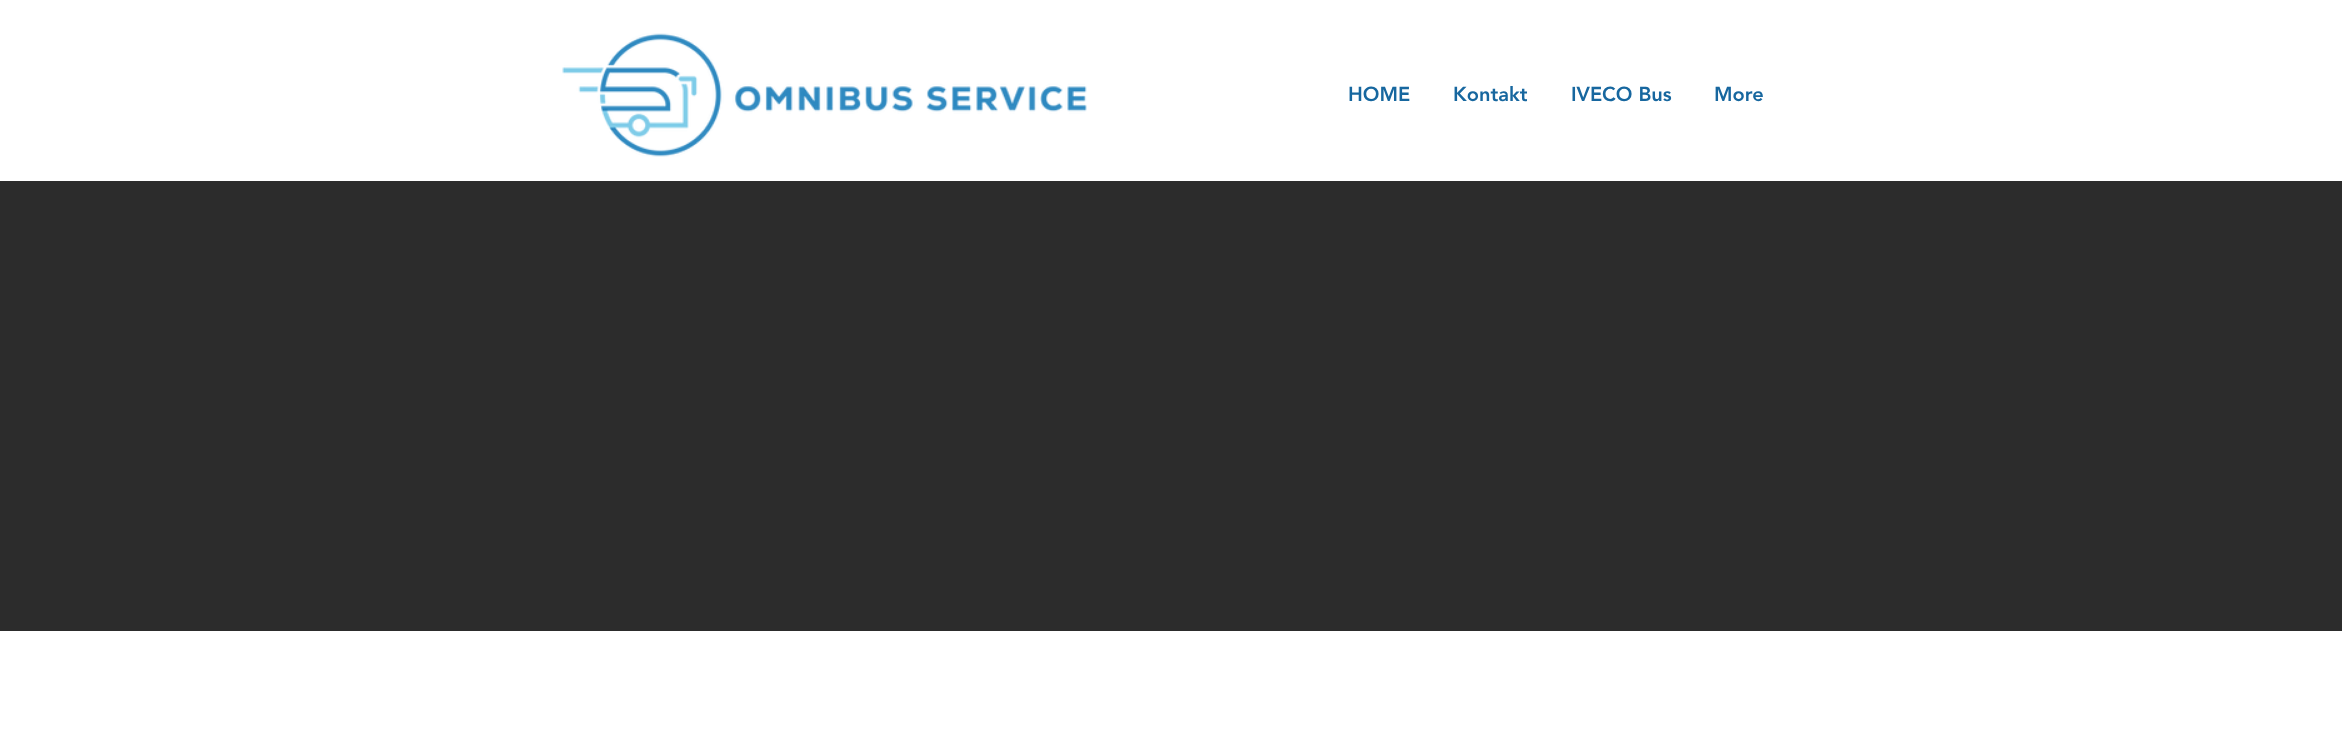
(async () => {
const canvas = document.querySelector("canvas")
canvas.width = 2342
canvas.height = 754
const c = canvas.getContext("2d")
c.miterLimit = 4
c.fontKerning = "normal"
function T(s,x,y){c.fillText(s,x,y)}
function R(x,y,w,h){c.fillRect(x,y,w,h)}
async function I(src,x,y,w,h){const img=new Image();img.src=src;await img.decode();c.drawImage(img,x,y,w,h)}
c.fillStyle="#fff"
R(0,0,2342,754)
await I("1.png",562,33,525,124)
c.font="900 20px 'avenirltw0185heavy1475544'"
c.fillStyle="#17679f"
T("HOME",1348,101)
T("Kontakt",1453,101)
T("IVECO Bus",1571,101)
T("More",1714,101)
c.fillStyle="#2c2c2c"
R(0,181,2342,450)
})()
